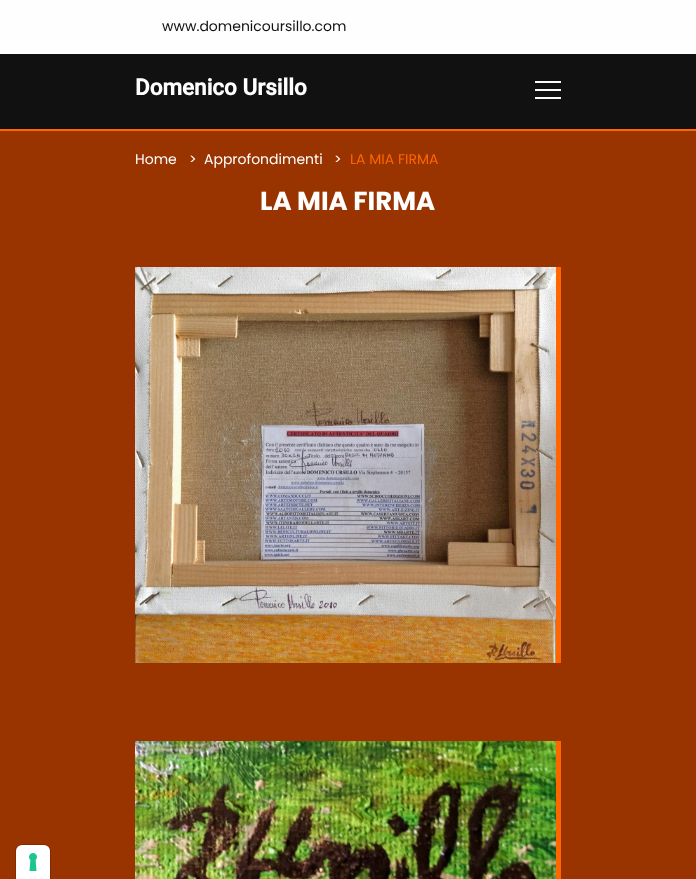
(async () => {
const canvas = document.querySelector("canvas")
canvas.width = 696
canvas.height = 879
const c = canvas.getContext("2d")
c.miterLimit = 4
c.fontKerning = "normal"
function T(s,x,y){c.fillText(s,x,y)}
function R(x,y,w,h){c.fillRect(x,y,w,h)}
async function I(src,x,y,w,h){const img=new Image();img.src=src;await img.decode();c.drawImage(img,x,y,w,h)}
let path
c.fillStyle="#930"
R(0,0,696,879)
c.fillStyle="#fefefe"
R(0,0,696,54)
c.font="14px Poppins"
c.fillStyle="#111"
T("www.domenicoursillo.com",162,31)
R(0,54,696,75)
c.fillStyle="#f60"
R(0,129,696,2)
c.font="bold 22.5px Roboto"
c.fillStyle="#fff"
T("Domenico Ursillo",135,95)
c.fillStyle="#fafafa"
R(535,89,26,2)
R(535,81,26,2)
R(535,97,26,2)
c.font="14px Poppins"
c.fillStyle="#fff"
T("Home",135,164)
T(">",189,164)
T("Approfondimenti",204,164)
T(">",334,164)
c.fillStyle="#f60"
T("LA MIA FIRMA",350,164)
c.font="bold 26px Poppins"
c.fillStyle="#fff"
T("LA MIA FIRMA",260,210)
c.fillStyle="#f60"
R(556,267,5,396)
await I("1.png",135,267,421,396)
R(556,741,5,138)
await I("2.png",135,741,421,138)
path = new Path2D("M22 844.5h22c3.5 0 6.5 3 6.5 6.5v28.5h-35v-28.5c0-3.5 3-6.5 6.5-6.5z")
c.strokeStyle="#822b00"
c.stroke(path)
c.fillStyle="#fff"
c.beginPath()
c.roundRect(16,845,34,34,[6,6,0,0])
c.fill()
await I("3.png",29,853,8,18)
})()
